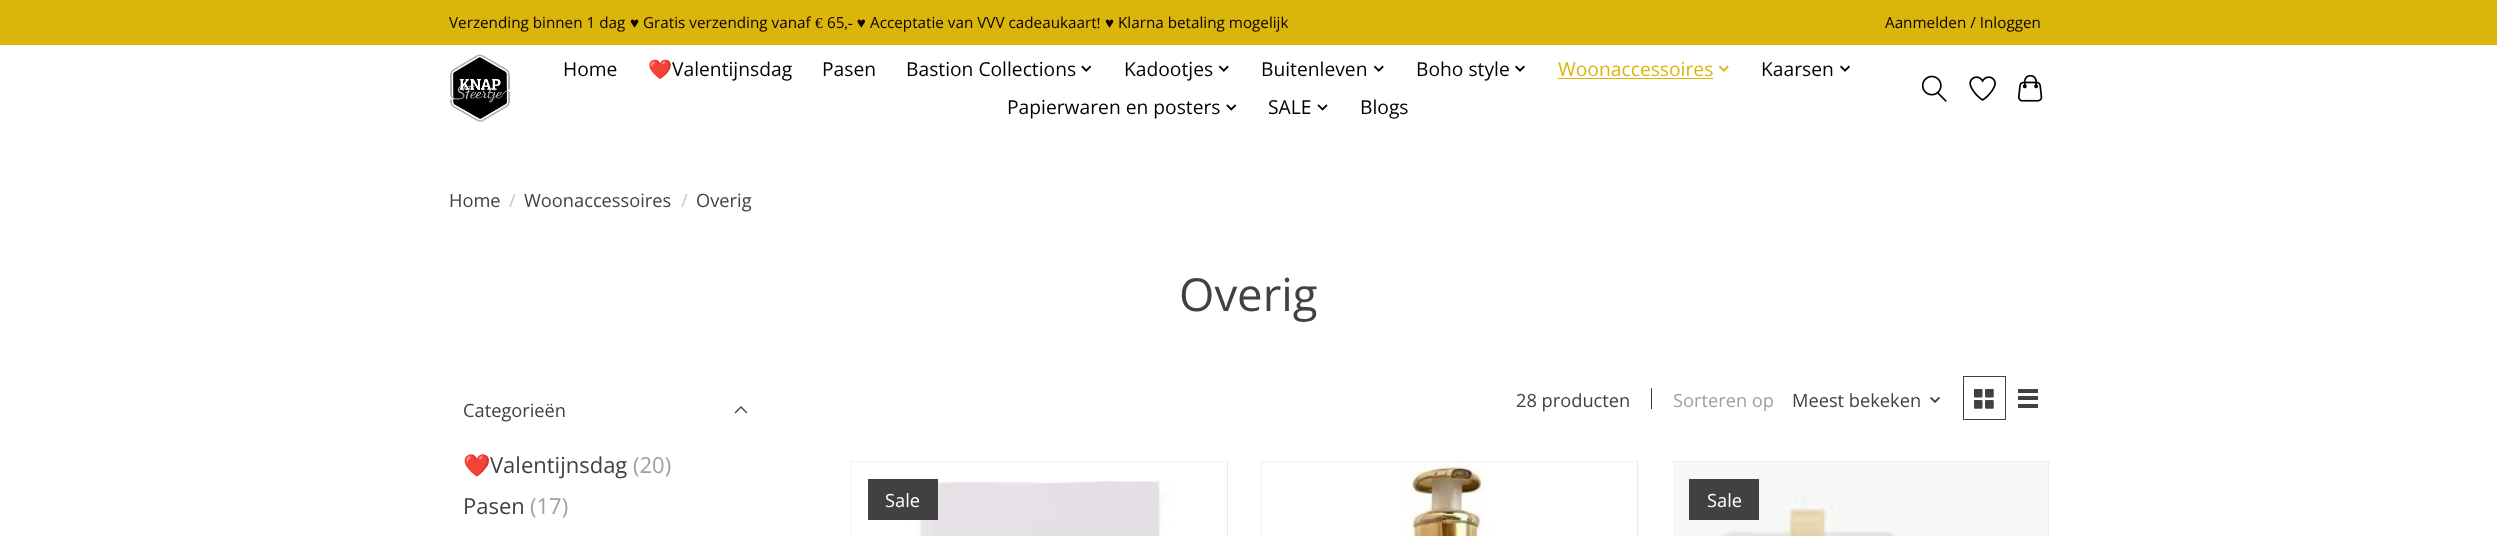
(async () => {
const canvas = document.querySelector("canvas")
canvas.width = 2497
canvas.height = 536
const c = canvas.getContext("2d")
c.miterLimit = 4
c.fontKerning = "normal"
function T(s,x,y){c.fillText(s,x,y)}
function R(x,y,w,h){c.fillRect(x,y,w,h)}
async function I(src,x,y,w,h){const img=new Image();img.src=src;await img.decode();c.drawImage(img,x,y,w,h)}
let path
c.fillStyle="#fff"
R(0,0,2497,536)
c.fillStyle="#dab50b"
R(0,0,2497,45)
c.font="15.25px Open Sans"
c.fillStyle="#0d0101"
T("Verzending binnen 1 dag",449,28)
c.font="15.25px Liberation Serif"
T("♥",630,28)
c.font="15.25px Open Sans"
T("Gratis verzending vanaf",643,28)
c.font="15.25px Liberation Serif"
T("€",815,28)
c.font="15.25px Open Sans"
T("65",827,28)
c.font="15.25px Liberation Serif"
T(",- ♥",844,28)
c.font="15.25px Open Sans"
T("Acceptatie van VVV cadeaukaart",870,28)
c.font="15.25px Liberation Serif"
T("! ♥",1096,28)
c.font="15.25px Open Sans"
T("Klarna betaling mogelijk",1118,28)
T("Aanmelden / Inloggen",1885,28)
await I("1.png",450,54,60,68)
c.font="19.25px Open Sans"
c.fillStyle="#000"
T("Home",563,76)
c.font="19.25px Noto Color Emoji"
T("❤️",648,76)
c.font="19.25px Open Sans"
T("Valentijnsdag",672,76)
T("Pasen",822,76)
T("Bastion Collections",906,76)
await I("2.png",1081,65,11,7)
T("Kadootjes",1124,76)
await I("3.png",1218,65,11,7)
T("Buitenleven",1261,76)
await I("3.png",1373,65,11,7)
T("Boho style",1416,76)
await I("4.png",1515,65,10,7)
c.fillStyle="#dab50b"
T("Woonaccessoires",1558,76)
R(1558,78,155,1)
await I("5.png",1718,65,11,7)
c.fillStyle="#000"
T("Kaarsen",1761,76)
await I("4.png",1840,65,10,7)
T("Papierwaren en posters",1007,114)
await I("6.png",1226,104,11,7)
T("SALE",1268,114)
await I("7.png",1317,104,11,7)
T("Blogs",1360,114)
await I("8.png",1921,75,26,27)
await I("9.png",1969,76,27,25)
await I("10.png",2018,75,25,27)
c.font="18.25px Open Sans"
c.fillStyle="#414141"
T("Home",449,207)
c.fillStyle="#c6c6c6"
T("/",509,207)
c.fillStyle="#414141"
T("Woonaccessoires",524,207)
c.fillStyle="#c6c6c6"
T("/",681,207)
c.fillStyle="#414141"
T("Overig",696,207)
c.font="45.5px Open Sans"
T("Overig",1179,311)
c.font="18.25px Open Sans"
T("Categorieën",463,417)
path = new Path2D("M735.5 412.5l5.5-5.5m5.5 5.5l-5.5-5.5")
c.strokeStyle="#414141"
c.lineWidth=1.3
c.lineCap="square"
c.stroke(path)
c.font="22px Noto Color Emoji"
T("❤️",463,473)
c.font="22px Open Sans"
T("Valentijnsdag",490,473)
c.fillStyle="#a0a0a0"
T("(20)",633,473)
c.fillStyle="#414141"
T("Pasen",463,514)
c.fillStyle="#a0a0a0"
T("(17)",530,514)
c.font="18.25px Open Sans"
c.fillStyle="#414141"
T("28 producten",1516,407)
R(1651,388,1,21)
c.fillStyle="#a0a0a0"
T("Sorteren op",1673,407)
c.fillStyle="#414141"
T("Meest bekeken",1792,407)
await I("11.png",1930,396,10,7)
c.lineWidth=1
c.strokeRect(1963.5,376.5,42,43)
await I("12.png",1974,389,20,20)
R(2018,389,20,4)
R(2018,396,20,4)
R(2018,404,20,4)
c.fillStyle="#e3e3e3"
R(851,461,377,75)
await I("13.png",851,461,377,75)
c.fillStyle="#414141"
R(868,479,70,41)
c.fillStyle="#fff"
T("Sale",885,507)
c.fillStyle="#e3e3e3"
R(1261,461,377,75)
await I("14.png",1261,461,377,75)
R(1673,461,376,75)
await I("15.png",1673,461,376,75)
c.fillStyle="#414141"
R(1689,479,70,41)
c.fillStyle="#fff"
T("Sale",1707,507)
})()
